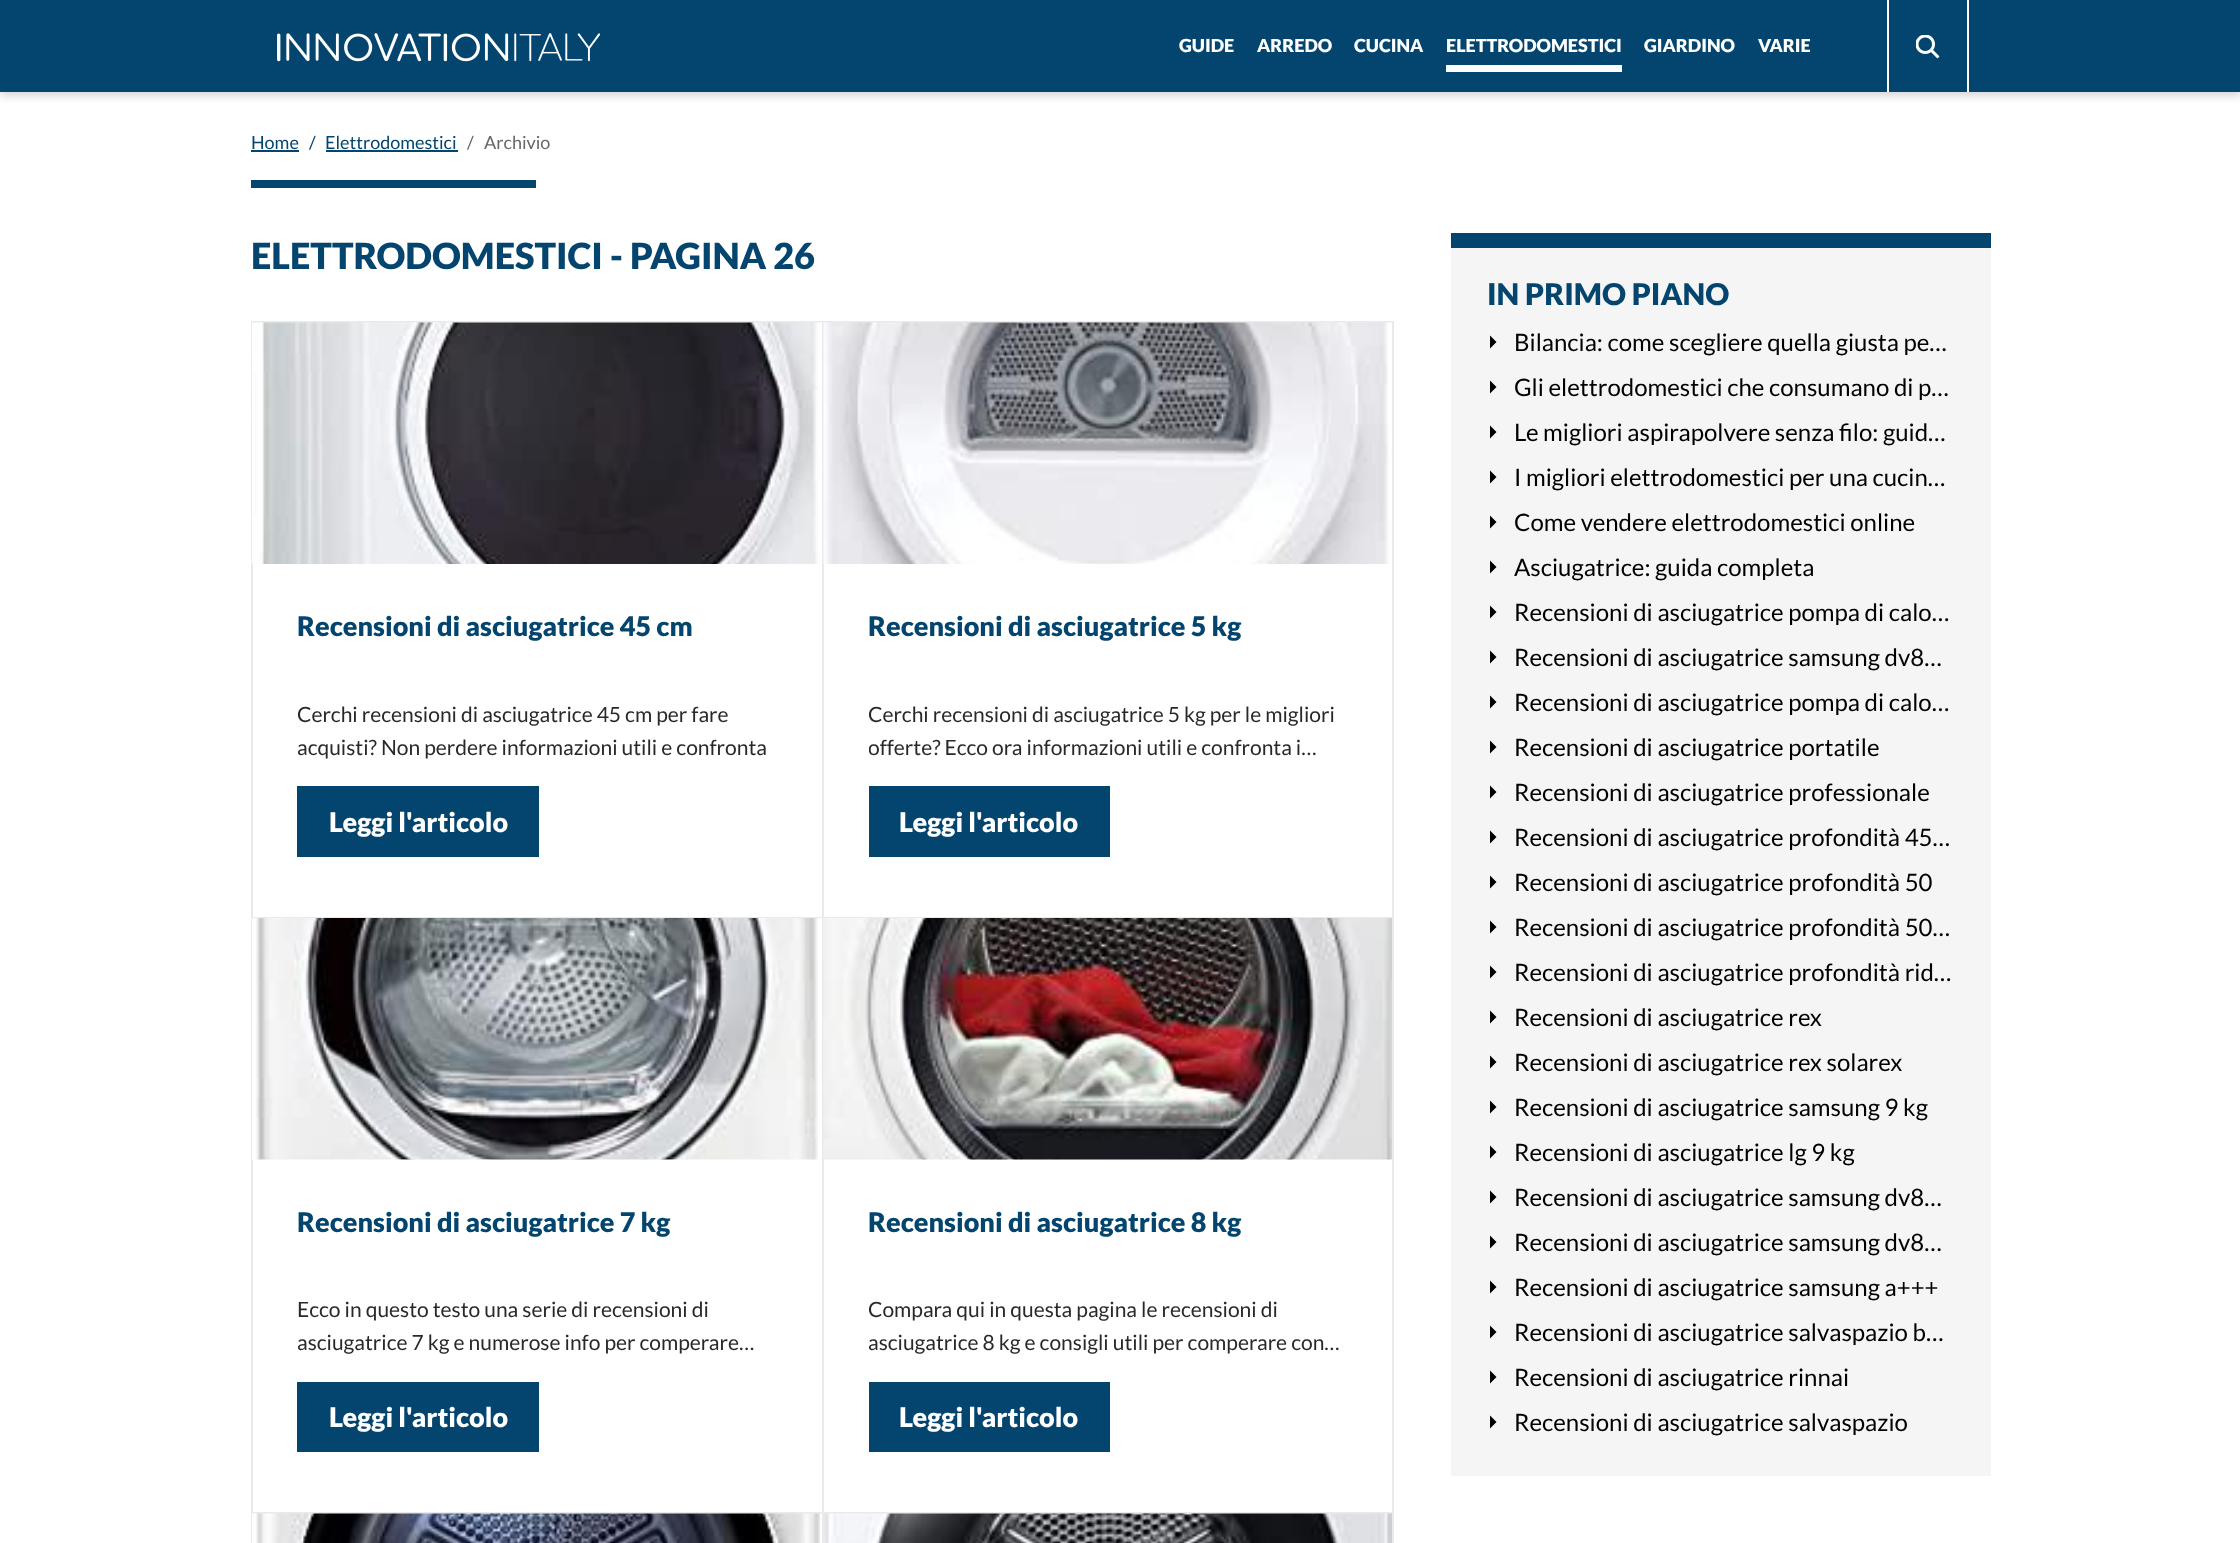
(async () => {
const canvas = document.querySelector("canvas")
canvas.width = 2240
canvas.height = 1543
const c = canvas.getContext("2d")
c.miterLimit = 4
c.fontKerning = "normal"
function T(s,x,y){c.fillText(s,x,y)}
function R(x,y,w,h){c.fillRect(x,y,w,h)}
async function I(src,x,y,w,h){const img=new Image();img.src=src;await img.decode();c.drawImage(img,x,y,w,h)}
let path
c.fillStyle="#fff"
R(0,0,2240,1543)
c.fillStyle="#00000029"
c.filter="blur(4.5px)"
c.beginPath()
c.rect(0,5,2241,91)
c.fill()
c.filter="none"
c.fillStyle="#03456e"
R(0,0,2240,92)
await I("1.png",277,33,324,29)
c.font="900 18px Lato"
c.fillStyle="#fff"
T("GUIDE",1179,52)
T("ARREDO",1257,52)
T("CUCINA",1354,52)
T("ELETTRODOMESTICI",1446,52)
R(1446,65,176,7)
T("GIARDINO",1644,52)
T("VARIE",1758,52)
R(1967,0,2,92)
R(1887,0,2,92)
await I("2.png",1916,35,24,24)
c.font="18px Lato"
c.fillStyle="#03456e"
T("Home",251,149)
R(251,150,48,2)
T("/",309,149)
T("Elettrodomestici",325,149)
R(326,150,132,2)
c.fillStyle="#676767"
T("/",467,149)
T("Archivio",484,149)
c.fillStyle="#03456e"
R(251,180,285,8)
c.font="900 36px Lato"
T("ELETTRODOMESTICI - PAGINA 26",251,269)
c.fillStyle="#eaeaea"
R(251,321,2,1222)
R(252,321,1142,2)
R(822,321,2,597)
R(252,917,572,1)
await I("3.png",252,322,570,242)
c.font="900 27px Lato"
c.fillStyle="#03456e"
T("Recensioni di asciugatrice 45 cm",297,636)
c.font="21px Lato"
c.fillStyle="#292929"
T("Cerchi recensioni di asciugatrice 45 cm per fare",297,722)
T("acquisti? Non perdere informazioni utili e confronta",297,755)
c.fillStyle="#03456e"
R(297,786,242,71)
c.font="900 27px Lato"
c.fillStyle="#fff"
T("Leggi l'articolo",329,832)
c.fillStyle="#eaeaea"
R(1392,321,2,597)
R(824,917,570,1)
await I("4.png",823,322,569,242)
c.fillStyle="#03456e"
T("Recensioni di asciugatrice 5 kg",868,636)
c.save()
c.beginPath()
c.rect(869,698,478,66)
c.clip()
c.font="21px Lato"
c.fillStyle="#292929"
T("Cerchi recensioni di asciugatrice 5 kg per le migliori",868,722)
T("offerte? Ecco ora informazioni utili e confronta i…",868,755)
c.restore()
R(869,786,241,71)
c.fillStyle="#fff"
T("Leggi l'articolo",899,832)
c.fillStyle="#eaeaea"
R(822,917,2,597)
R(252,1512,572,2)
await I("5.png",252,918,570,242)
c.fillStyle="#03456e"
T("Recensioni di asciugatrice 7 kg",297,1232)
c.font="21px Lato"
c.fillStyle="#292929"
T("Ecco in questo testo una serie di recensioni di",297,1317)
T("asciugatrice 7 kg e numerose info per comperare…",297,1350)
c.fillStyle="#03456e"
R(297,1382,242,70)
c.font="900 27px Lato"
c.fillStyle="#fff"
T("Leggi l'articolo",329,1427)
c.fillStyle="#eaeaea"
R(1392,917,2,597)
R(824,1512,570,2)
await I("6.png",823,918,569,242)
c.fillStyle="#03456e"
T("Recensioni di asciugatrice 8 kg",868,1232)
c.save()
c.beginPath()
c.rect(869,1293,478,66)
c.clip()
c.font="21px Lato"
c.fillStyle="#292929"
T("Compara qui in questa pagina le recensioni di",868,1317)
T("asciugatrice 8 kg e consigli utili per comperare con…",868,1350)
c.restore()
R(869,1382,241,70)
c.fillStyle="#fff"
T("Leggi l'articolo",899,1427)
c.fillStyle="#eaeaea"
R(822,1512,2,31)
await I("7.png",252,1513,570,30)
R(1392,1512,2,31)
await I("8.png",824,1513,568,30)
c.fillStyle="#f5f5f5"
R(1451,248,540,1228)
c.fillStyle="#03456e"
R(1451,233,540,15)
c.font="900 30px Lato"
T("IN PRIMO PIANO",1487,305)
c.fillStyle="#000"
path = new Path2D("M1490 348.5l6.5-6.5l-6.5-6.5zm0 45l6.5-6.5l-6.5-6.5z")
c.fill(path)
c.font="24px Lato"
T("Bilancia: come scegliere quella giusta pe…",1514,351)
T("Gli elettrodomestici che consumano di p…",1514,396)
path = new Path2D("M1490 438.5l6.5-6.5l-6.5-6.5zm0 45l6.5-6.5l-6.5-6.5z")
c.fill(path)
T("Le migliori aspirapolvere senza filo: guid…",1514,441)
T("I migliori elettrodomestici per una cucin…",1514,486)
path = new Path2D("M1490 528.5l6.5-6.5l-6.5-6.5zm0 45l6.5-6.5l-6.5-6.5z")
c.fill(path)
T("Come vendere elettrodomestici online",1514,531)
T("Asciugatrice: guida completa",1514,576)
path = new Path2D("M1490 618.5l6.5-6.5l-6.5-6.5zm0 45l6.5-6.5l-6.5-6.5z")
c.fill(path)
T("Recensioni di asciugatrice pompa di calo…",1514,621)
T("Recensioni di asciugatrice samsung dv8…",1514,666)
path = new Path2D("M1490 708.5l6.5-6.5l-6.5-6.5zm0 45l6.5-6.5l-6.5-6.5z")
c.fill(path)
T("Recensioni di asciugatrice pompa di calo…",1514,711)
T("Recensioni di asciugatrice portatile",1514,756)
path = new Path2D("M1490 798.5l6.5-6.5l-6.5-6.5zm0 45l6.5-6.5l-6.5-6.5z")
c.fill(path)
T("Recensioni di asciugatrice professionale",1514,801)
T("Recensioni di asciugatrice profondità 45…",1514,846)
path = new Path2D("M1490 888.5l6.5-6.5l-6.5-6.5zm0 45l6.5-6.5l-6.5-6.5z")
c.fill(path)
T("Recensioni di asciugatrice profondità 50",1514,891)
T("Recensioni di asciugatrice profondità 50…",1514,936)
path = new Path2D("M1490 978.5l6.5-6.5l-6.5-6.5zm0 45l6.5-6.5l-6.5-6.5z")
c.fill(path)
T("Recensioni di asciugatrice profondità rid…",1514,981)
T("Recensioni di asciugatrice rex",1514,1026)
path = new Path2D("M1490 1068.5l6.5-6.5l-6.5-6.5zm0 45l6.5-6.5l-6.5-6.5z")
c.fill(path)
T("Recensioni di asciugatrice rex solarex",1514,1071)
T("Recensioni di asciugatrice samsung 9 kg",1514,1116)
path = new Path2D("M1490 1158.5l6.5-6.5l-6.5-6.5zm0 45l6.5-6.5l-6.5-6.5z")
c.fill(path)
T("Recensioni di asciugatrice lg 9 kg",1514,1161)
T("Recensioni di asciugatrice samsung dv8…",1514,1206)
path = new Path2D("M1490 1248.5l6.5-6.5l-6.5-6.5zm0 45l6.5-6.5l-6.5-6.5z")
c.fill(path)
T("Recensioni di asciugatrice samsung dv8…",1514,1251)
T("Recensioni di asciugatrice samsung a+++",1514,1296)
path = new Path2D("M1490 1338.5l6.5-6.5l-6.5-6.5zm0 45l6.5-6.5l-6.5-6.5z")
c.fill(path)
T("Recensioni di asciugatrice salvaspazio b…",1514,1341)
T("Recensioni di asciugatrice rinnai",1514,1386)
path = new Path2D("M1490 1428.5l6.5-6.5l-6.5-6.5z")
c.fill(path)
T("Recensioni di asciugatrice salvaspazio",1514,1431)
})()
